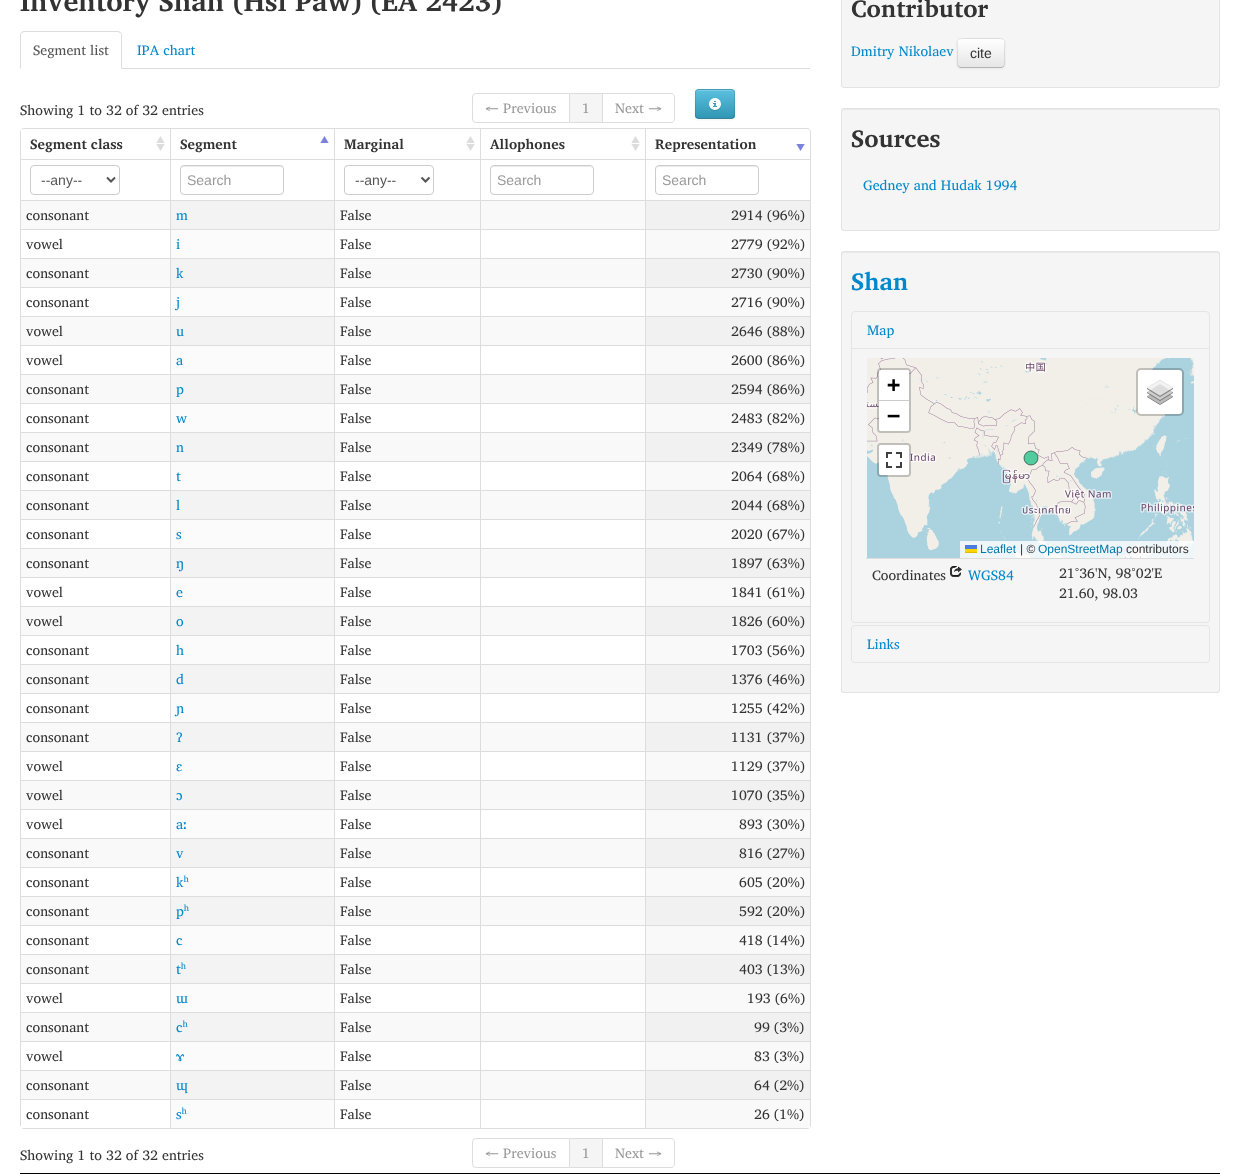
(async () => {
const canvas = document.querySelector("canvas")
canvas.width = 1240
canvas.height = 1174
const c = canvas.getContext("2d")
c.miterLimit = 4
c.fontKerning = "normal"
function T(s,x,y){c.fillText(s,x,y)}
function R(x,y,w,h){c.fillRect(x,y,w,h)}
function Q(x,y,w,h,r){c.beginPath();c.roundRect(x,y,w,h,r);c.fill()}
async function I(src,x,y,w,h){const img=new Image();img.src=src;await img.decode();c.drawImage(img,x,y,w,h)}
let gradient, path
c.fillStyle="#fff"
R(0,0,1240,1174)
c.font="bold 28px Charis SIL"
c.fillStyle="#333"
T("Inventory Shan (Hsi Paw) (EA 2423)",20,11)
c.fillStyle="#ddd"
R(122,68,688,1)
path = new Path2D("M24 31l-3 1l1 1l2-1h94l2 1l1-1l-3-1z")
c.fill(path)
path = new Path2D("M122 69v-34c0-1-.5-2-1-3l-1 1c1 0 1 1 1 2v33z")
c.fill(path)
path = new Path2D("M20 69l1-1v-33c0-1 0-2 1-2l-1-1c-.5 1-1 2-1 3z")
c.fill(path)
c.font="14px Charis SIL"
c.fillStyle="#555"
T("Segment list",33,55)
c.fillStyle="#08c"
T("IPA chart",137,55)
c.fillStyle="#333"
T("Showing 1 to 32 of 32 entries",20,115)
c.beginPath()
c.roundRect(472.5,93.5,97,29,[3.5,0,0,3.5])
c.strokeStyle="#ddd"
c.stroke()
c.fillStyle="#999"
T("← Previous",485,113)
c.fillStyle="#f5f5f5"
R(570,94,32,28)
c.fillStyle="#ddd"
R(570,93,33,1)
R(602,93,1,30)
R(570,122,33,1)
c.fillStyle="#999"
T("1",582,113)
c.fillStyle="#ddd"
path = new Path2D("M603 93h68c2 0 4 2 4 4v22c0 2-2 4-4 4h-68zm0 1h68c2 0 3 1 3 3v22c0 2-1 3-3 3h-68z")
c.fill(path,"evenodd")
c.fillStyle="#999"
T("Next →",615,113)
c.fillStyle="#0000000d"
c.filter="blur(1px)"
c.beginPath()
c.roundRect(695,90,40,30,4)
c.fill()
c.filter="none"
c.fillStyle="#49afcd"
Q(695,89,40,30,4)
c.save()
c.beginPath()
c.roundRect(695,89,40,30,4)
c.clip()
gradient = c.createLinearGradient(715,90,715,118)
gradient.addColorStop(0,"#5bc0de")
gradient.addColorStop(1,"#2f96b4")
c.fillStyle = gradient
R(695,90,40,28)
c.restore()
c.fillStyle="#7bcce4"
path = new Path2D("M699 91h32c2 0 3 1 3 3c0-5-4-4-8.5-4h-21c-4.5 0-8.5-1-8.5 4c0-2 1-3 3-3z")
c.fill(path)
path = new Path2D("M733.5 117.5c-.5 .5-1.5 1-2.5 1h-32c-1 0-2-.5-2.5-1")
c.strokeStyle="#00000040"
c.stroke(path)
path = new Path2D("M696.5 117.5c-.5-.5-1-1.5-1-2.5v-22c0-1 .5-2 1-2.5c.5-.5 1.5-1 2.5-1h32c1 0 2 .5 2.5 1c.5 .5 1 1.5 1 2.5v22c0 1-.5 2-1 2.5")
c.strokeStyle="#0000001a"
c.stroke(path)
await I("1.png",709,98,12,13)
c.fillStyle="#ddd"
path = new Path2D("M24 128h783c2 0 4 2 4 4v993c0 2-2 4-4 4h-783c-2 0-4-2-4-4v-993c0-2 2-4 4-4zm0 1h783c2 0 3 1 3 3v993c0 2-1 3-3 3h-783c-2 0-4-1-4-3v-993c0-2 2-3 4-3z")
c.fill(path,"evenodd")
await I("2.png",156,136,9,15)
R(20,131,1,28)
c.font="bold 14px Charis SIL"
c.fillStyle="#333"
T("Segment class",30,149)
await I("3.png",320,136,9,7)
c.fillStyle="#ddd"
R(170,129,1,30)
c.fillStyle="#333"
T("Segment",180,149)
await I("2.png",466,136,9,15)
c.fillStyle="#ddd"
R(334,129,1,30)
c.fillStyle="#333"
T("Marginal",344,149)
await I("2.png",631,136,9,15)
c.fillStyle="#ddd"
R(480,129,1,30)
c.fillStyle="#333"
T("Allophones",490,149)
await I("4.png",796,144,9,7)
c.fillStyle="#ddd"
R(645,129,1,30)
c.fillStyle="#333"
T("Representation",655,149)
c.fillStyle="#ddd"
R(20,159,790,1)
R(20,159,1,41)
c.beginPath()
c.roundRect(30.5,165.5,89,29,3.5)
c.strokeStyle="#ccc"
c.stroke()
path = new Path2D("M107 177.5l4 4l4-4")
c.strokeStyle="#555"
c.lineWidth=2
c.stroke(path)
c.font="14px Liberation Sans"
c.fillStyle="#555"
T("--any--",41,185)
c.fillStyle="#ddd"
R(170,159,1,41)
c.fillStyle="#ececec"
path = new Path2D("M184 167h96c2 0 3 1 3 3c0-8-16-4-19-4h-64c-3 0-19-4-19 4c0-2 1-3 3-3z")
c.fill(path)
c.beginPath()
c.roundRect(180.5,165.5,103,29,3.5)
c.strokeStyle="#ccc"
c.lineWidth=1
c.stroke()
c.fillStyle="#999"
T("Search",187,185)
c.fillStyle="#ddd"
R(334,159,1,41)
c.beginPath()
c.roundRect(344.5,165.5,89,29,3.5)
c.stroke()
path = new Path2D("M421.5 177.5l4 4l4-4")
c.strokeStyle="#555"
c.lineWidth=2
c.stroke(path)
c.fillStyle="#555"
T("--any--",355,185)
c.fillStyle="#ddd"
R(480,159,1,41)
c.fillStyle="#ececec"
path = new Path2D("M494 167h96c2 0 3 1 3 3c0-8-16-4-19-4h-64c-3 0-19-4-19 4c0-2 1-3 3-3z")
c.fill(path)
c.beginPath()
c.roundRect(490.5,165.5,103,29,3.5)
c.strokeStyle="#ccc"
c.lineWidth=1
c.stroke()
c.fillStyle="#999"
T("Search",497,185)
c.fillStyle="#ddd"
R(645,159,1,41)
c.fillStyle="#ececec"
path = new Path2D("M659 167h96c2 0 3 1 3 3c0-8-16-4-19-4h-64c-3 0-19-4-19 4c0-2 1-3 3-3z")
c.fill(path)
c.beginPath()
c.roundRect(655.5,165.5,103,29,3.5)
c.stroke()
c.fillStyle="#999"
T("Search",662,185)
c.fillStyle="#f9f9f9"
R(21,201,624,28)
c.fillStyle="#ddd"
R(20,200,790,1)
R(20,200,1,29)
c.font="14px Charis SIL"
c.fillStyle="#333"
T("consonant",26,220)
c.fillStyle="#f3f3f3"
R(171,201,163,28)
c.fillStyle="#ddd"
R(170,200,1,29)
c.fillStyle="#08c"
T("m",176,220)
c.fillStyle="#ddd"
R(334,200,1,29)
c.fillStyle="#333"
T("False",340,220)
c.fillStyle="#ddd"
R(480,200,1,29)
c.fillStyle="#f1f1f1"
R(646,201,164,28)
c.fillStyle="#ddd"
R(645,200,1,29)
c.fillStyle="#333"
T("2914 (96%)",731,220)
c.fillStyle="#ddd"
R(20,229,790,1)
R(20,229,1,29)
c.fillStyle="#333"
T("vowel",26,249)
c.fillStyle="#fbfbfb"
R(171,230,163,28)
c.fillStyle="#ddd"
R(170,229,1,29)
c.fillStyle="#08c"
T("i",176,249)
c.fillStyle="#ddd"
R(334,229,1,29)
c.fillStyle="#333"
T("False",340,249)
c.fillStyle="#ddd"
R(480,229,1,29)
c.fillStyle="#f9f9f9"
R(646,230,164,28)
c.fillStyle="#ddd"
R(645,229,1,29)
c.fillStyle="#333"
T("2779 (92%)",731,249)
c.fillStyle="#f9f9f9"
R(21,259,624,28)
c.fillStyle="#ddd"
R(20,258,790,1)
R(20,258,1,29)
c.fillStyle="#333"
T("consonant",26,278)
c.fillStyle="#f3f3f3"
R(171,259,163,28)
c.fillStyle="#ddd"
R(170,258,1,29)
c.fillStyle="#08c"
T("k",176,278)
c.fillStyle="#ddd"
R(334,258,1,29)
c.fillStyle="#333"
T("False",340,278)
c.fillStyle="#ddd"
R(480,258,1,29)
c.fillStyle="#f1f1f1"
R(646,259,164,28)
c.fillStyle="#ddd"
R(645,258,1,29)
c.fillStyle="#333"
T("2730 (90%)",731,278)
c.fillStyle="#ddd"
R(20,287,790,1)
R(20,287,1,29)
c.fillStyle="#333"
T("consonant",26,307)
c.fillStyle="#fbfbfb"
R(171,288,163,28)
c.fillStyle="#ddd"
R(170,287,1,29)
c.fillStyle="#08c"
T("j",176,307)
c.fillStyle="#ddd"
R(334,287,1,29)
c.fillStyle="#333"
T("False",340,307)
c.fillStyle="#ddd"
R(480,287,1,29)
c.fillStyle="#f9f9f9"
R(646,288,164,28)
c.fillStyle="#ddd"
R(645,287,1,29)
c.fillStyle="#333"
T("2716 (90%)",731,307)
c.fillStyle="#f9f9f9"
R(21,317,624,28)
c.fillStyle="#ddd"
R(20,316,790,1)
R(20,316,1,29)
c.fillStyle="#333"
T("vowel",26,336)
c.fillStyle="#f3f3f3"
R(171,317,163,28)
c.fillStyle="#ddd"
R(170,316,1,29)
c.fillStyle="#08c"
T("u",176,336)
c.fillStyle="#ddd"
R(334,316,1,29)
c.fillStyle="#333"
T("False",340,336)
c.fillStyle="#ddd"
R(480,316,1,29)
c.fillStyle="#f1f1f1"
R(646,317,164,28)
c.fillStyle="#ddd"
R(645,316,1,29)
c.fillStyle="#333"
T("2646 (88%)",731,336)
c.fillStyle="#ddd"
R(20,345,790,1)
R(20,345,1,29)
c.fillStyle="#333"
T("vowel",26,365)
c.fillStyle="#fbfbfb"
R(171,346,163,28)
c.fillStyle="#ddd"
R(170,345,1,29)
c.fillStyle="#08c"
T("a",176,365)
c.fillStyle="#ddd"
R(334,345,1,29)
c.fillStyle="#333"
T("False",340,365)
c.fillStyle="#ddd"
R(480,345,1,29)
c.fillStyle="#f9f9f9"
R(646,346,164,28)
c.fillStyle="#ddd"
R(645,345,1,29)
c.fillStyle="#333"
T("2600 (86%)",731,365)
c.fillStyle="#f9f9f9"
R(21,375,624,28)
c.fillStyle="#ddd"
R(20,374,790,1)
R(20,374,1,29)
c.fillStyle="#333"
T("consonant",26,394)
c.fillStyle="#f3f3f3"
R(171,375,163,28)
c.fillStyle="#ddd"
R(170,374,1,29)
c.fillStyle="#08c"
T("p",176,394)
c.fillStyle="#ddd"
R(334,374,1,29)
c.fillStyle="#333"
T("False",340,394)
c.fillStyle="#ddd"
R(480,374,1,29)
c.fillStyle="#f1f1f1"
R(646,375,164,28)
c.fillStyle="#ddd"
R(645,374,1,29)
c.fillStyle="#333"
T("2594 (86%)",731,394)
c.fillStyle="#ddd"
R(20,403,790,1)
R(20,403,1,29)
c.fillStyle="#333"
T("consonant",26,423)
c.fillStyle="#fbfbfb"
R(171,404,163,28)
c.fillStyle="#ddd"
R(170,403,1,29)
c.fillStyle="#08c"
T("w",176,423)
c.fillStyle="#ddd"
R(334,403,1,29)
c.fillStyle="#333"
T("False",340,423)
c.fillStyle="#ddd"
R(480,403,1,29)
c.fillStyle="#f9f9f9"
R(646,404,164,28)
c.fillStyle="#ddd"
R(645,403,1,29)
c.fillStyle="#333"
T("2483 (82%)",731,423)
c.fillStyle="#f9f9f9"
R(21,433,624,28)
c.fillStyle="#ddd"
R(20,432,790,1)
R(20,432,1,29)
c.fillStyle="#333"
T("consonant",26,452)
c.fillStyle="#f3f3f3"
R(171,433,163,28)
c.fillStyle="#ddd"
R(170,432,1,29)
c.fillStyle="#08c"
T("n",176,452)
c.fillStyle="#ddd"
R(334,432,1,29)
c.fillStyle="#333"
T("False",340,452)
c.fillStyle="#ddd"
R(480,432,1,29)
c.fillStyle="#f1f1f1"
R(646,433,164,28)
c.fillStyle="#ddd"
R(645,432,1,29)
c.fillStyle="#333"
T("2349 (78%)",731,452)
c.fillStyle="#ddd"
R(20,461,790,1)
R(20,461,1,29)
c.fillStyle="#333"
T("consonant",26,481)
c.fillStyle="#fbfbfb"
R(171,462,163,28)
c.fillStyle="#ddd"
R(170,461,1,29)
c.fillStyle="#08c"
T("t",176,481)
c.fillStyle="#ddd"
R(334,461,1,29)
c.fillStyle="#333"
T("False",340,481)
c.fillStyle="#ddd"
R(480,461,1,29)
c.fillStyle="#f9f9f9"
R(646,462,164,28)
c.fillStyle="#ddd"
R(645,461,1,29)
c.fillStyle="#333"
T("2064 (68%)",731,481)
c.fillStyle="#f9f9f9"
R(21,491,624,28)
c.fillStyle="#ddd"
R(20,490,790,1)
R(20,490,1,29)
c.fillStyle="#333"
T("consonant",26,510)
c.fillStyle="#f3f3f3"
R(171,491,163,28)
c.fillStyle="#ddd"
R(170,490,1,29)
c.fillStyle="#08c"
T("l",176,510)
c.fillStyle="#ddd"
R(334,490,1,29)
c.fillStyle="#333"
T("False",340,510)
c.fillStyle="#ddd"
R(480,490,1,29)
c.fillStyle="#f1f1f1"
R(646,491,164,28)
c.fillStyle="#ddd"
R(645,490,1,29)
c.fillStyle="#333"
T("2044 (68%)",731,510)
c.fillStyle="#ddd"
R(20,519,790,1)
R(20,519,1,29)
c.fillStyle="#333"
T("consonant",26,539)
c.fillStyle="#fbfbfb"
R(171,520,163,28)
c.fillStyle="#ddd"
R(170,519,1,29)
c.fillStyle="#08c"
T("s",176,539)
c.fillStyle="#ddd"
R(334,519,1,29)
c.fillStyle="#333"
T("False",340,539)
c.fillStyle="#ddd"
R(480,519,1,29)
c.fillStyle="#f9f9f9"
R(646,520,164,28)
c.fillStyle="#ddd"
R(645,519,1,29)
c.fillStyle="#333"
T("2020 (67%)",731,539)
c.fillStyle="#f9f9f9"
R(21,549,624,28)
c.fillStyle="#ddd"
R(20,548,790,1)
R(20,548,1,29)
c.fillStyle="#333"
T("consonant",26,568)
c.fillStyle="#f3f3f3"
R(171,549,163,28)
c.fillStyle="#ddd"
R(170,548,1,29)
c.fillStyle="#08c"
T("ŋ",176,568)
c.fillStyle="#ddd"
R(334,548,1,29)
c.fillStyle="#333"
T("False",340,568)
c.fillStyle="#ddd"
R(480,548,1,29)
c.fillStyle="#f1f1f1"
R(646,549,164,28)
c.fillStyle="#ddd"
R(645,548,1,29)
c.fillStyle="#333"
T("1897 (63%)",731,568)
c.fillStyle="#ddd"
R(20,577,790,1)
R(20,577,1,29)
c.fillStyle="#333"
T("vowel",26,597)
c.fillStyle="#fbfbfb"
R(171,578,163,28)
c.fillStyle="#ddd"
R(170,577,1,29)
c.fillStyle="#08c"
T("e",176,597)
c.fillStyle="#ddd"
R(334,577,1,29)
c.fillStyle="#333"
T("False",340,597)
c.fillStyle="#ddd"
R(480,577,1,29)
c.fillStyle="#f9f9f9"
R(646,578,164,28)
c.fillStyle="#ddd"
R(645,577,1,29)
c.fillStyle="#333"
T("1841 (61%)",731,597)
c.fillStyle="#f9f9f9"
R(21,607,624,28)
c.fillStyle="#ddd"
R(20,606,790,1)
R(20,606,1,29)
c.fillStyle="#333"
T("vowel",26,626)
c.fillStyle="#f3f3f3"
R(171,607,163,28)
c.fillStyle="#ddd"
R(170,606,1,29)
c.fillStyle="#08c"
T("o",176,626)
c.fillStyle="#ddd"
R(334,606,1,29)
c.fillStyle="#333"
T("False",340,626)
c.fillStyle="#ddd"
R(480,606,1,29)
c.fillStyle="#f1f1f1"
R(646,607,164,28)
c.fillStyle="#ddd"
R(645,606,1,29)
c.fillStyle="#333"
T("1826 (60%)",731,626)
c.fillStyle="#ddd"
R(20,635,790,1)
R(20,635,1,29)
c.fillStyle="#333"
T("consonant",26,655)
c.fillStyle="#fbfbfb"
R(171,636,163,28)
c.fillStyle="#ddd"
R(170,635,1,29)
c.fillStyle="#08c"
T("h",176,655)
c.fillStyle="#ddd"
R(334,635,1,29)
c.fillStyle="#333"
T("False",340,655)
c.fillStyle="#ddd"
R(480,635,1,29)
c.fillStyle="#f9f9f9"
R(646,636,164,28)
c.fillStyle="#ddd"
R(645,635,1,29)
c.fillStyle="#333"
T("1703 (56%)",731,655)
c.fillStyle="#f9f9f9"
R(21,665,624,28)
c.fillStyle="#ddd"
R(20,664,790,1)
R(20,664,1,29)
c.fillStyle="#333"
T("consonant",26,684)
c.fillStyle="#f3f3f3"
R(171,665,163,28)
c.fillStyle="#ddd"
R(170,664,1,29)
c.fillStyle="#08c"
T("d",176,684)
c.fillStyle="#ddd"
R(334,664,1,29)
c.fillStyle="#333"
T("False",340,684)
c.fillStyle="#ddd"
R(480,664,1,29)
c.fillStyle="#f1f1f1"
R(646,665,164,28)
c.fillStyle="#ddd"
R(645,664,1,29)
c.fillStyle="#333"
T("1376 (46%)",731,684)
c.fillStyle="#ddd"
R(20,693,790,1)
R(20,693,1,29)
c.fillStyle="#333"
T("consonant",26,713)
c.fillStyle="#fbfbfb"
R(171,694,163,28)
c.fillStyle="#ddd"
R(170,693,1,29)
c.fillStyle="#08c"
T("ɲ",176,713)
c.fillStyle="#ddd"
R(334,693,1,29)
c.fillStyle="#333"
T("False",340,713)
c.fillStyle="#ddd"
R(480,693,1,29)
c.fillStyle="#f9f9f9"
R(646,694,164,28)
c.fillStyle="#ddd"
R(645,693,1,29)
c.fillStyle="#333"
T("1255 (42%)",731,713)
c.fillStyle="#f9f9f9"
R(21,723,624,28)
c.fillStyle="#ddd"
R(20,722,790,1)
R(20,722,1,29)
c.fillStyle="#333"
T("consonant",26,742)
c.fillStyle="#f3f3f3"
R(171,723,163,28)
c.fillStyle="#ddd"
R(170,722,1,29)
c.fillStyle="#08c"
T("ʔ",176,742)
c.fillStyle="#ddd"
R(334,722,1,29)
c.fillStyle="#333"
T("False",340,742)
c.fillStyle="#ddd"
R(480,722,1,29)
c.fillStyle="#f1f1f1"
R(646,723,164,28)
c.fillStyle="#ddd"
R(645,722,1,29)
c.fillStyle="#333"
T("1131 (37%)",731,742)
c.fillStyle="#ddd"
R(20,751,790,1)
R(20,751,1,29)
c.fillStyle="#333"
T("vowel",26,771)
c.fillStyle="#fbfbfb"
R(171,752,163,28)
c.fillStyle="#ddd"
R(170,751,1,29)
c.fillStyle="#08c"
T("ɛ",176,771)
c.fillStyle="#ddd"
R(334,751,1,29)
c.fillStyle="#333"
T("False",340,771)
c.fillStyle="#ddd"
R(480,751,1,29)
c.fillStyle="#f9f9f9"
R(646,752,164,28)
c.fillStyle="#ddd"
R(645,751,1,29)
c.fillStyle="#333"
T("1129 (37%)",731,771)
c.fillStyle="#f9f9f9"
R(21,781,624,28)
c.fillStyle="#ddd"
R(20,780,790,1)
R(20,780,1,29)
c.fillStyle="#333"
T("vowel",26,800)
c.fillStyle="#f3f3f3"
R(171,781,163,28)
c.fillStyle="#ddd"
R(170,780,1,29)
c.fillStyle="#08c"
T("ɔ",176,800)
c.fillStyle="#ddd"
R(334,780,1,29)
c.fillStyle="#333"
T("False",340,800)
c.fillStyle="#ddd"
R(480,780,1,29)
c.fillStyle="#f1f1f1"
R(646,781,164,28)
c.fillStyle="#ddd"
R(645,780,1,29)
c.fillStyle="#333"
T("1070 (35%)",731,800)
c.fillStyle="#ddd"
R(20,809,790,1)
R(20,809,1,29)
c.fillStyle="#333"
T("vowel",26,829)
c.fillStyle="#fbfbfb"
R(171,810,163,28)
c.fillStyle="#ddd"
R(170,809,1,29)
c.fillStyle="#08c"
T("aː",176,829)
c.fillStyle="#ddd"
R(334,809,1,29)
c.fillStyle="#333"
T("False",340,829)
c.fillStyle="#ddd"
R(480,809,1,29)
c.fillStyle="#f9f9f9"
R(646,810,164,28)
c.fillStyle="#ddd"
R(645,809,1,29)
c.fillStyle="#333"
T("893 (30%)",739,829)
c.fillStyle="#f9f9f9"
R(21,839,624,28)
c.fillStyle="#ddd"
R(20,838,790,1)
R(20,838,1,29)
c.fillStyle="#333"
T("consonant",26,858)
c.fillStyle="#f3f3f3"
R(171,839,163,28)
c.fillStyle="#ddd"
R(170,838,1,29)
c.fillStyle="#08c"
T("v",176,858)
c.fillStyle="#ddd"
R(334,838,1,29)
c.fillStyle="#333"
T("False",340,858)
c.fillStyle="#ddd"
R(480,838,1,29)
c.fillStyle="#f1f1f1"
R(646,839,164,28)
c.fillStyle="#ddd"
R(645,838,1,29)
c.fillStyle="#333"
T("816 (27%)",739,858)
c.fillStyle="#ddd"
R(20,867,790,1)
R(20,867,1,29)
c.fillStyle="#333"
T("consonant",26,887)
c.fillStyle="#fbfbfb"
R(171,868,163,28)
c.fillStyle="#ddd"
R(170,867,1,29)
c.fillStyle="#08c"
T("kʰ",176,887)
c.fillStyle="#ddd"
R(334,867,1,29)
c.fillStyle="#333"
T("False",340,887)
c.fillStyle="#ddd"
R(480,867,1,29)
c.fillStyle="#f9f9f9"
R(646,868,164,28)
c.fillStyle="#ddd"
R(645,867,1,29)
c.fillStyle="#333"
T("605 (20%)",739,887)
c.fillStyle="#f9f9f9"
R(21,897,624,28)
c.fillStyle="#ddd"
R(20,896,790,1)
R(20,896,1,29)
c.fillStyle="#333"
T("consonant",26,916)
c.fillStyle="#f3f3f3"
R(171,897,163,28)
c.fillStyle="#ddd"
R(170,896,1,29)
c.fillStyle="#08c"
T("pʰ",176,916)
c.fillStyle="#ddd"
R(334,896,1,29)
c.fillStyle="#333"
T("False",340,916)
c.fillStyle="#ddd"
R(480,896,1,29)
c.fillStyle="#f1f1f1"
R(646,897,164,28)
c.fillStyle="#ddd"
R(645,896,1,29)
c.fillStyle="#333"
T("592 (20%)",739,916)
c.fillStyle="#ddd"
R(20,925,790,1)
R(20,925,1,29)
c.fillStyle="#333"
T("consonant",26,945)
c.fillStyle="#fbfbfb"
R(171,926,163,28)
c.fillStyle="#ddd"
R(170,925,1,29)
c.fillStyle="#08c"
T("c",176,945)
c.fillStyle="#ddd"
R(334,925,1,29)
c.fillStyle="#333"
T("False",340,945)
c.fillStyle="#ddd"
R(480,925,1,29)
c.fillStyle="#f9f9f9"
R(646,926,164,28)
c.fillStyle="#ddd"
R(645,925,1,29)
c.fillStyle="#333"
T("418 (14%)",739,945)
c.fillStyle="#f9f9f9"
R(21,955,624,28)
c.fillStyle="#ddd"
R(20,954,790,1)
R(20,954,1,29)
c.fillStyle="#333"
T("consonant",26,974)
c.fillStyle="#f3f3f3"
R(171,955,163,28)
c.fillStyle="#ddd"
R(170,954,1,29)
c.fillStyle="#08c"
T("tʰ",176,974)
c.fillStyle="#ddd"
R(334,954,1,29)
c.fillStyle="#333"
T("False",340,974)
c.fillStyle="#ddd"
R(480,954,1,29)
c.fillStyle="#f1f1f1"
R(646,955,164,28)
c.fillStyle="#ddd"
R(645,954,1,29)
c.fillStyle="#333"
T("403 (13%)",739,974)
c.fillStyle="#ddd"
R(20,983,790,1)
R(20,983,1,29)
c.fillStyle="#333"
T("vowel",26,1003)
c.fillStyle="#fbfbfb"
R(171,984,163,28)
c.fillStyle="#ddd"
R(170,983,1,29)
c.fillStyle="#08c"
T("ɯ",176,1003)
c.fillStyle="#ddd"
R(334,983,1,29)
c.fillStyle="#333"
T("False",340,1003)
c.fillStyle="#ddd"
R(480,983,1,29)
c.fillStyle="#f9f9f9"
R(646,984,164,28)
c.fillStyle="#ddd"
R(645,983,1,29)
c.fillStyle="#333"
T("193 (6%)",747,1003)
c.fillStyle="#f9f9f9"
R(21,1013,624,28)
c.fillStyle="#ddd"
R(20,1012,790,1)
R(20,1012,1,29)
c.fillStyle="#333"
T("consonant",26,1032)
c.fillStyle="#f3f3f3"
R(171,1013,163,28)
c.fillStyle="#ddd"
R(170,1012,1,29)
c.fillStyle="#08c"
T("cʰ",176,1032)
c.fillStyle="#ddd"
R(334,1012,1,29)
c.fillStyle="#333"
T("False",340,1032)
c.fillStyle="#ddd"
R(480,1012,1,29)
c.fillStyle="#f1f1f1"
R(646,1013,164,28)
c.fillStyle="#ddd"
R(645,1012,1,29)
c.fillStyle="#333"
T("99 (3%)",754,1032)
c.fillStyle="#ddd"
R(20,1041,790,1)
R(20,1041,1,29)
c.fillStyle="#333"
T("vowel",26,1061)
c.fillStyle="#fbfbfb"
R(171,1042,163,28)
c.fillStyle="#ddd"
R(170,1041,1,29)
c.fillStyle="#08c"
T("ɤ",176,1061)
c.fillStyle="#ddd"
R(334,1041,1,29)
c.fillStyle="#333"
T("False",340,1061)
c.fillStyle="#ddd"
R(480,1041,1,29)
c.fillStyle="#f9f9f9"
R(646,1042,164,28)
c.fillStyle="#ddd"
R(645,1041,1,29)
c.fillStyle="#333"
T("83 (3%)",754,1061)
c.fillStyle="#f9f9f9"
R(21,1071,624,28)
c.fillStyle="#ddd"
R(20,1070,790,1)
R(20,1070,1,29)
c.fillStyle="#333"
T("consonant",26,1090)
c.fillStyle="#f3f3f3"
R(171,1071,163,28)
c.fillStyle="#ddd"
R(170,1070,1,29)
c.fillStyle="#08c"
T("ɰ",176,1090)
c.fillStyle="#ddd"
R(334,1070,1,29)
c.fillStyle="#333"
T("False",340,1090)
c.fillStyle="#ddd"
R(480,1070,1,29)
c.fillStyle="#f1f1f1"
R(646,1071,164,28)
c.fillStyle="#ddd"
R(645,1070,1,29)
c.fillStyle="#333"
T("64 (2%)",754,1090)
c.fillStyle="#fff"
R(20,1126,790,2)
c.fillStyle="#ddd"
R(20,1099,625,1)
R(20,1099,1,27)
c.fillStyle="#333"
T("consonant",26,1119)
c.fillStyle="#fbfbfb"
R(171,1100,163,28)
c.fillStyle="#ddd"
R(170,1099,1,29)
c.fillStyle="#08c"
T("sʰ",176,1119)
c.fillStyle="#ddd"
R(334,1099,1,29)
c.fillStyle="#333"
T("False",340,1119)
c.fillStyle="#ddd"
R(480,1099,1,29)
c.fillStyle="#f9f9f9"
c.beginPath()
c.roundRect(645,1099,165,29,[0,0,4,0])
c.fill()
c.fillStyle="#ddd"
R(645,1099,165,1)
R(645,1099,1,29)
c.fillStyle="#333"
T("26 (1%)",754,1119)
T("Showing 1 to 32 of 32 entries",20,1160)
c.beginPath()
c.roundRect(472.5,1138.5,97,29,[3.5,0,0,3.5])
c.strokeStyle="#ddd"
c.stroke()
c.fillStyle="#999"
T("← Previous",485,1158)
c.fillStyle="#f5f5f5"
R(570,1139,32,28)
c.fillStyle="#ddd"
R(570,1138,33,1)
R(602,1138,1,30)
R(570,1167,33,1)
c.fillStyle="#999"
T("1",582,1158)
c.fillStyle="#ddd"
path = new Path2D("M603 1138h68c2 0 4 2 4 4v22c0 2-2 4-4 4h-68zm0 1h68c2 0 3 1 3 3v22c0 2-1 3-3 3h-68z")
c.fill(path,"evenodd")
c.fillStyle="#999"
T("Next →",615,1158)
c.fillStyle="#f5f5f5"
c.beginPath()
c.roundRect(841.5,-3.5,378,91,2.5)
c.fill()
c.strokeStyle="#e3e3e3"
c.stroke()
c.font="bold 24.5px Charis SIL"
c.fillStyle="#333"
T("Contributor",851,17)
c.font="14px Charis SIL"
c.fillStyle="#08c"
T("Dmitry Nikolaev",851,56)
c.fillStyle="#0000000d"
c.filter="blur(1px)"
c.beginPath()
c.roundRect(957,39,48,30,4)
c.fill()
c.filter="none"
c.fillStyle="#f5f5f5"
Q(957,38,48,30,4)
c.save()
c.beginPath()
c.roundRect(957,38,48,30,4)
c.clip()
gradient = c.createLinearGradient(981,39,981,67)
gradient.addColorStop(0,"#fff")
gradient.addColorStop(1,"#e6e6e6")
c.fillStyle = gradient
R(957,39,48,28)
c.restore()
c.fillStyle="#fff"
path = new Path2D("M961 40h27c9 0 13-1 15 1c1 0 1 1 1 3c0-7-3-5-10-5h-26c-3 0-10-2-10 3c0-1 1-2 3-2zm-3 25v-7z")
c.fill(path,"evenodd")
path = new Path2D("M1003.5 66.5c-.5 .5-1.5 1-2.5 1h-40c-1 0-2-.5-2.5-1")
c.strokeStyle="#b3b3b3"
c.stroke(path)
path = new Path2D("M958.5 66.5c-2-2-1-10.5-1-13.5c0-13.5-3-14.5 10-14.5h27c13 0 10 1 10 14.5c0 3 1 11.5-1 13.5")
c.strokeStyle="#0000001a"
c.stroke(path)
c.font="14px Liberation Sans"
c.fillStyle="#333"
T("cite",970,58)
c.fillStyle="#f5f5f5"
Q(841,108,379,123,3)
c.fillStyle="#e9e9e9"
path = new Path2D("M844 110h373c1 0 2 1 2 2c0-1 0-2-1-3h-374l-2 1v2c0-1 1-2 2-2z")
c.fill(path)
c.beginPath()
c.roundRect(841.5,108.5,378,122,2.5)
c.strokeStyle="#e3e3e3"
c.stroke()
c.font="bold 24.5px Charis SIL"
c.fillStyle="#333"
T("Sources",851,147)
c.font="14px Charis SIL"
c.fillStyle="#08c"
T("Gedney and Hudak 1994",863,190)
c.fillStyle="#f5f5f5"
Q(841,251,379,442,3)
c.fillStyle="#e9e9e9"
path = new Path2D("M844 253h373c1 0 2 1 2 2c0-1 0-2-1-3h-374l-2 1v2c0-1 1-2 2-2z")
c.fill(path)
c.beginPath()
c.roundRect(841.5,251.5,378,441,2.5)
c.stroke()
c.font="bold 24.5px Charis SIL"
c.fillStyle="#08c"
T("Shan",851,290)
c.beginPath()
c.roundRect(851.5,311.5,358,311,3.5)
c.strokeStyle="#e5e5e5"
c.stroke()
c.font="14px Charis SIL"
T("Map",867,335)
c.fillStyle="#e5e5e5"
R(852,348,357,1)
await I("5.png",867,358,118,200)
await I("6.png",985,358,209,200)
c.fillStyle="#51cc9e"
c.beginPath()
c.arc(1031,458,7,0,7)
c.fill()
c.strokeStyle="#000"
c.lineWidth=0.5
c.stroke()
c.beginPath()
c.roundRect(878,369,32,63,3)
c.strokeStyle="#00000033"
c.lineWidth=2
c.stroke()
c.fillStyle="#fff"
c.beginPath()
c.roundRect(879,370,30,31,[2,2,0,0])
c.fill()
c.fillStyle="#ccc"
R(879,400,30,1)
c.font="bold 22px DejaVu Sans Mono"
c.fillStyle="#000"
T("+",887,392)
c.fillStyle="#fff"
c.beginPath()
c.roundRect(879,401,30,30,[0,0,2,2])
c.fill()
c.fillStyle="#000"
T("−",887,423)
c.beginPath()
c.roundRect(878,444,32,32,3)
c.stroke()
c.fillStyle="#fff"
Q(879,445,30,30,2)
await I("7.png",886,452,16,16)
Q(1138,370,44,44,3)
c.beginPath()
c.roundRect(1137,369,46,46,4)
c.stroke()
await I("8.png",1147,380,26,25)
c.fillStyle="#ffffffcc"
R(960,541,234,17)
c.font="12px Liberation Sans"
c.fillStyle="#0078a8"
T("Leaflet",980,553)
c.fillStyle="#4c7be1"
R(965,545,12,4)
c.fillStyle="#ffd500"
R(965,549,12,3)
c.fillStyle="#e0bc00"
R(965,552,12,1)
c.fillStyle="#333"
T("| ©",1020,553)
c.fillStyle="#0078a8"
T("OpenStreetMap",1038,553)
c.fillStyle="#333"
T("contributors",1126,553)
c.font="14px Charis SIL"
T("Coordinates",872,580)
await I("9.png",950,566,12,11)
c.fillStyle="#08c"
T("WGS84",968,580)
c.fillStyle="#ddd"
R(866,558,328,1)
c.fillStyle="#333"
T("21°36'N, 98°02'E",1059,578)
T("21.60, 98.03",1059,598)
c.beginPath()
c.roundRect(851.5,625.5,358,37,3.5)
c.strokeStyle="#e5e5e5"
c.lineWidth=1
c.stroke()
c.fillStyle="#08c"
T("Links",867,649)
c.fillStyle="#000"
R(20,1173,1200,1)
})()
